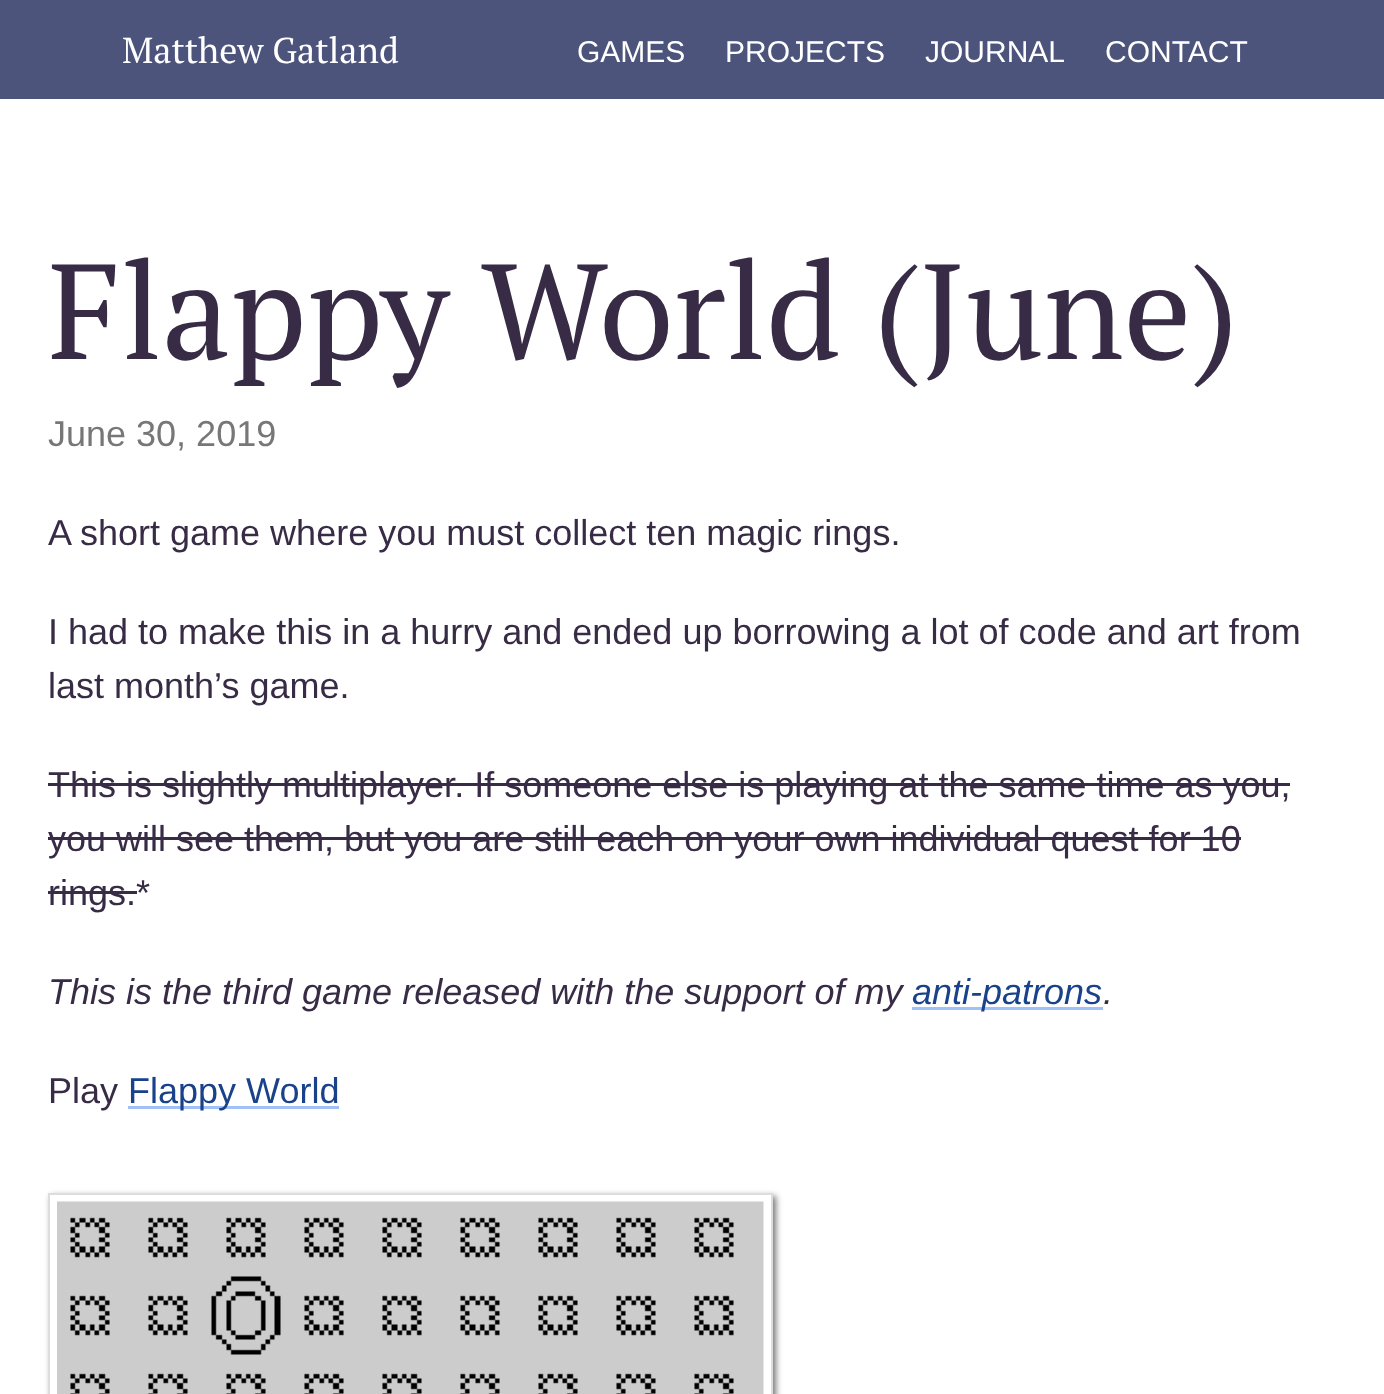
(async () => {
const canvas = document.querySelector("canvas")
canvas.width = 1384
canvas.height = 1394
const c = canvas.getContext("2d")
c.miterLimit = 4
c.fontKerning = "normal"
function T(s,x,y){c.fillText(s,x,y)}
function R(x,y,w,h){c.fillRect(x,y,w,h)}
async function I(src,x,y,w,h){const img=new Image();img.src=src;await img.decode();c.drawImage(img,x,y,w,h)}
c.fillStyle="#fff"
R(0,0,1384,1394)
c.fillStyle="#4d547c"
R(0,0,1384,99)
c.font="36px PT Serif"
c.fillStyle="#fff"
T("Matthew Gatland",122,63)
c.font="30px Liberation Sans"
T("GAMES",577,62)
T("PROJECTS",725,62)
T("JOURNAL",925,62)
T("CONTACT",1105,62)
c.font="135px PT Serif"
c.fillStyle="#382b45"
T("Flappy World (June)",48,359)
c.font="36px Liberation Sans"
c.fillStyle="#777"
T("June 30, 2019",48,446)
c.fillStyle="#382b45"
T("A short game where you must collect ten magic rings.",48,545)
T("I had to make this in a hurry and ended up borrowing a lot of code and art from",48,644)
T("last month’s game.",48,698)
T("This is slightly multiplayer. If someone else is playing at the same time as you,",48,797)
R(48,783,1242,3)
T("you will see them, but you are still each on your own individual quest for 10",48,851)
R(48,837,1193,3)
T("rings.",48,905)
R(48,891,89,3)
T("*",136,905)
c.font="italic 36px Liberation Sans"
T("This is the third game released with the support of my",48,1004)
c.fillStyle="#9fc0f9"
R(912,1007,191,3)
c.fillStyle="#19428a"
T("anti-patrons",912,1004)
c.fillStyle="#382b45"
T(".",1103,1004)
c.font="36px Liberation Sans"
T("Play",48,1103)
c.fillStyle="#9fc0f9"
R(128,1106,211,3)
c.fillStyle="#19428a"
T("Flappy World",128,1103)
c.fillStyle="#777"
c.filter="blur(3px)"
c.beginPath()
c.rect(51,1196,725,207)
c.fill()
c.filter="none"
c.fillStyle="#fff"
c.beginPath()
c.rect(49,1194,723,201)
c.fill()
c.strokeStyle="#ddd"
c.lineWidth=2
c.stroke()
await I("1.png",57,1201,707,193)
})()
